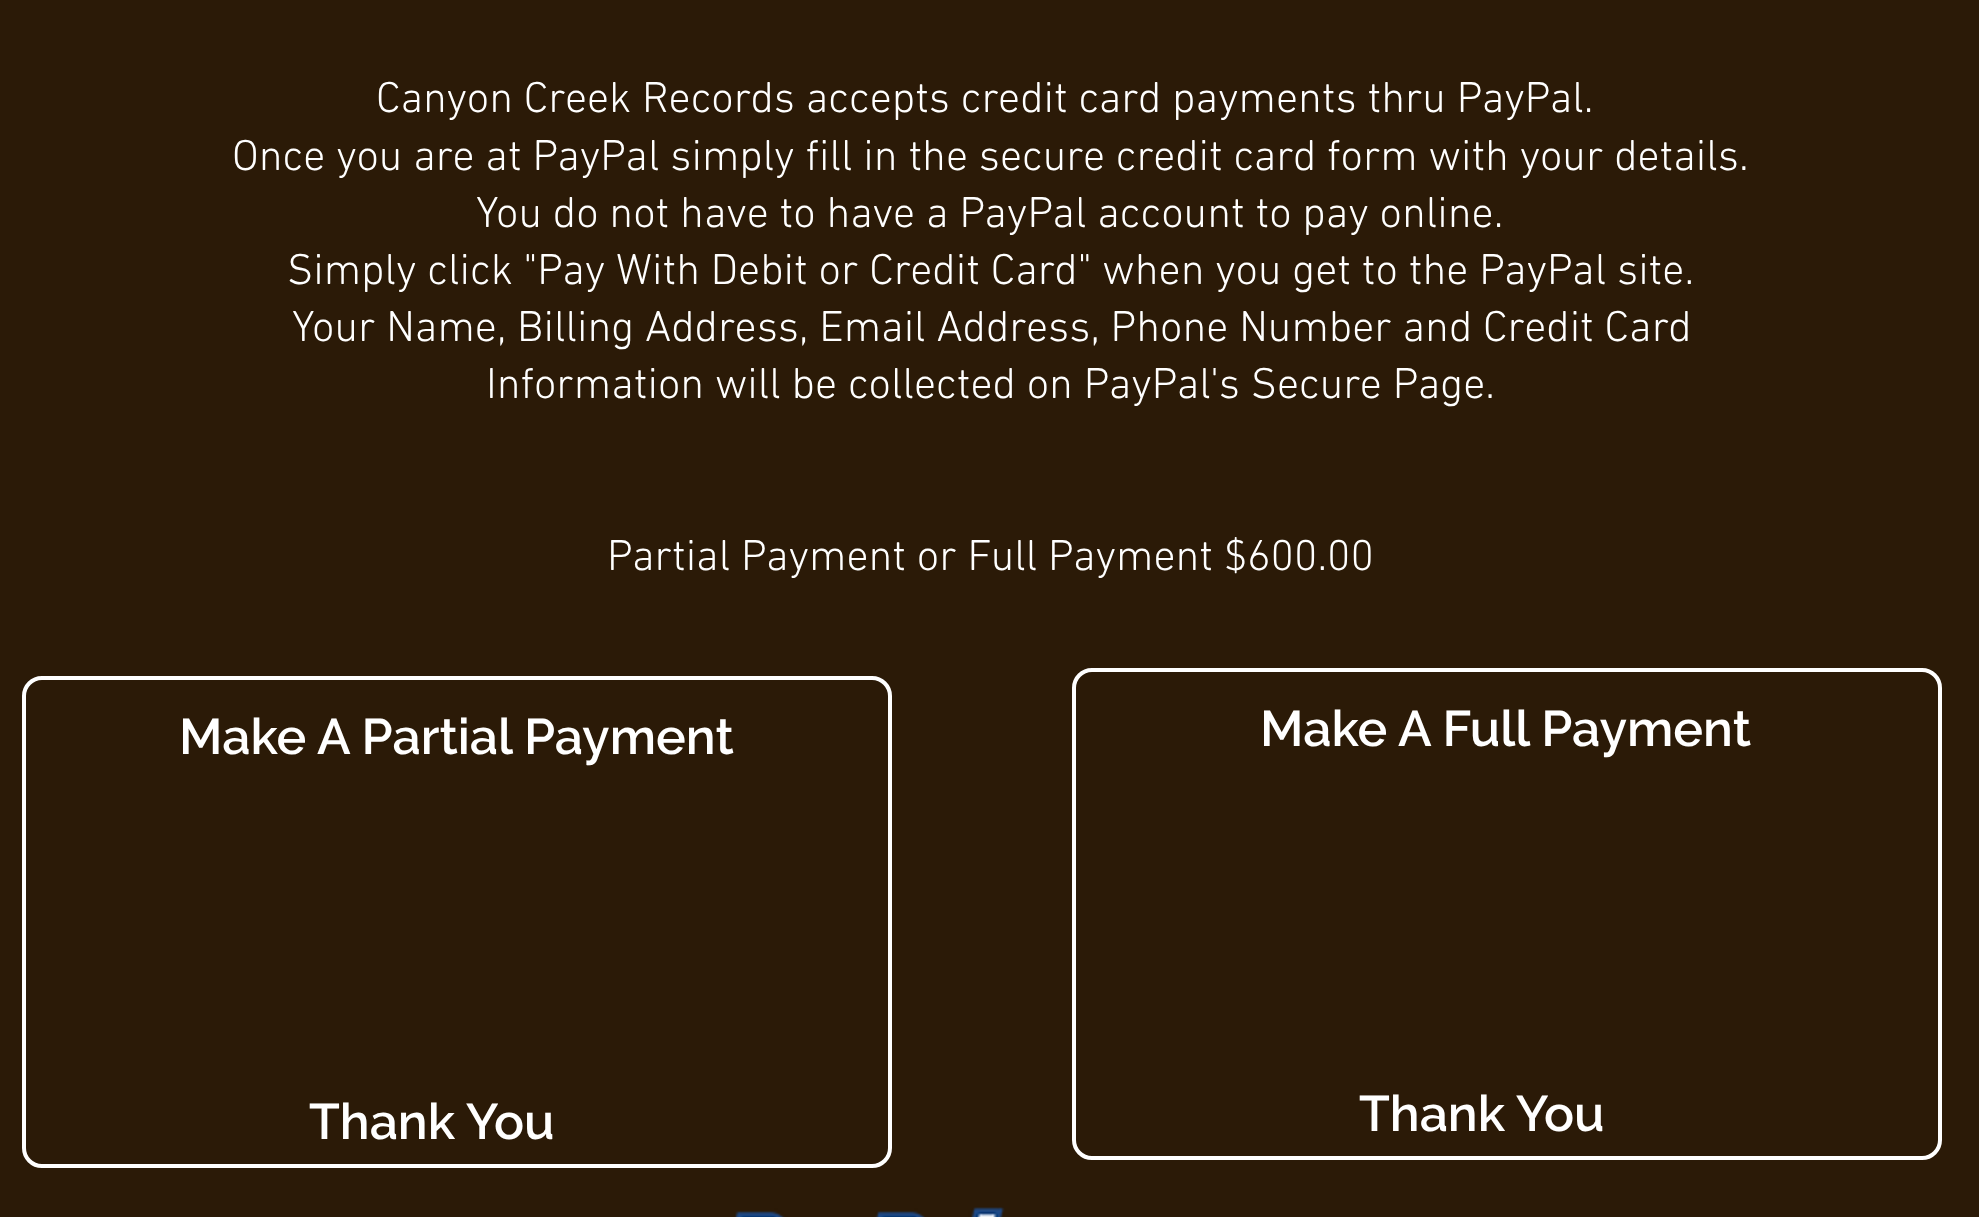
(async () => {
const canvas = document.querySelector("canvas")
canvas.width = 1979
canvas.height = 1217
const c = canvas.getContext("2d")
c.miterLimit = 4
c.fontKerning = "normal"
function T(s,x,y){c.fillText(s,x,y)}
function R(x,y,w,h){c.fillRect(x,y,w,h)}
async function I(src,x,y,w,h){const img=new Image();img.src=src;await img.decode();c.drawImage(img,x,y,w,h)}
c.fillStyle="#2b1a07"
R(0,0,1979,1217)
c.font="300 44px 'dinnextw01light'"
c.fillStyle="#fff"
T("Canyon Creek Records accepts credit card payments thru PayPal.",376,112)
T("Once you are at PayPal simply fill in the secure credit card form with your details.",232,170)
T("You do not have to have a PayPal account to pay online.",476,227)
T("Simply click \"Pay With Debit or Credit Card\" when you get to the PayPal site.",287,284)
T("Your Name, Billing Address, Email Address, Phone Number and Credit Card",292,341)
T("Information will be collected on PayPal's Secure Page.",486,398)
T("Partial Payment or Full Payment $600.00",607,570)
c.beginPath()
c.roundRect(24,678,866,488,18)
c.strokeStyle="#fff"
c.lineWidth=4
c.stroke()
c.font="600 50px Raleway"
T("Make A Partial Payment",179,754)
T("Thank You",309,1139)
c.beginPath()
c.roundRect(1074,670,866,488,18)
c.stroke()
T("Make A Full Payment",1260,746)
T("Thank You",1359,1131)
await I("1.png",735,1207,270,10)
})()
